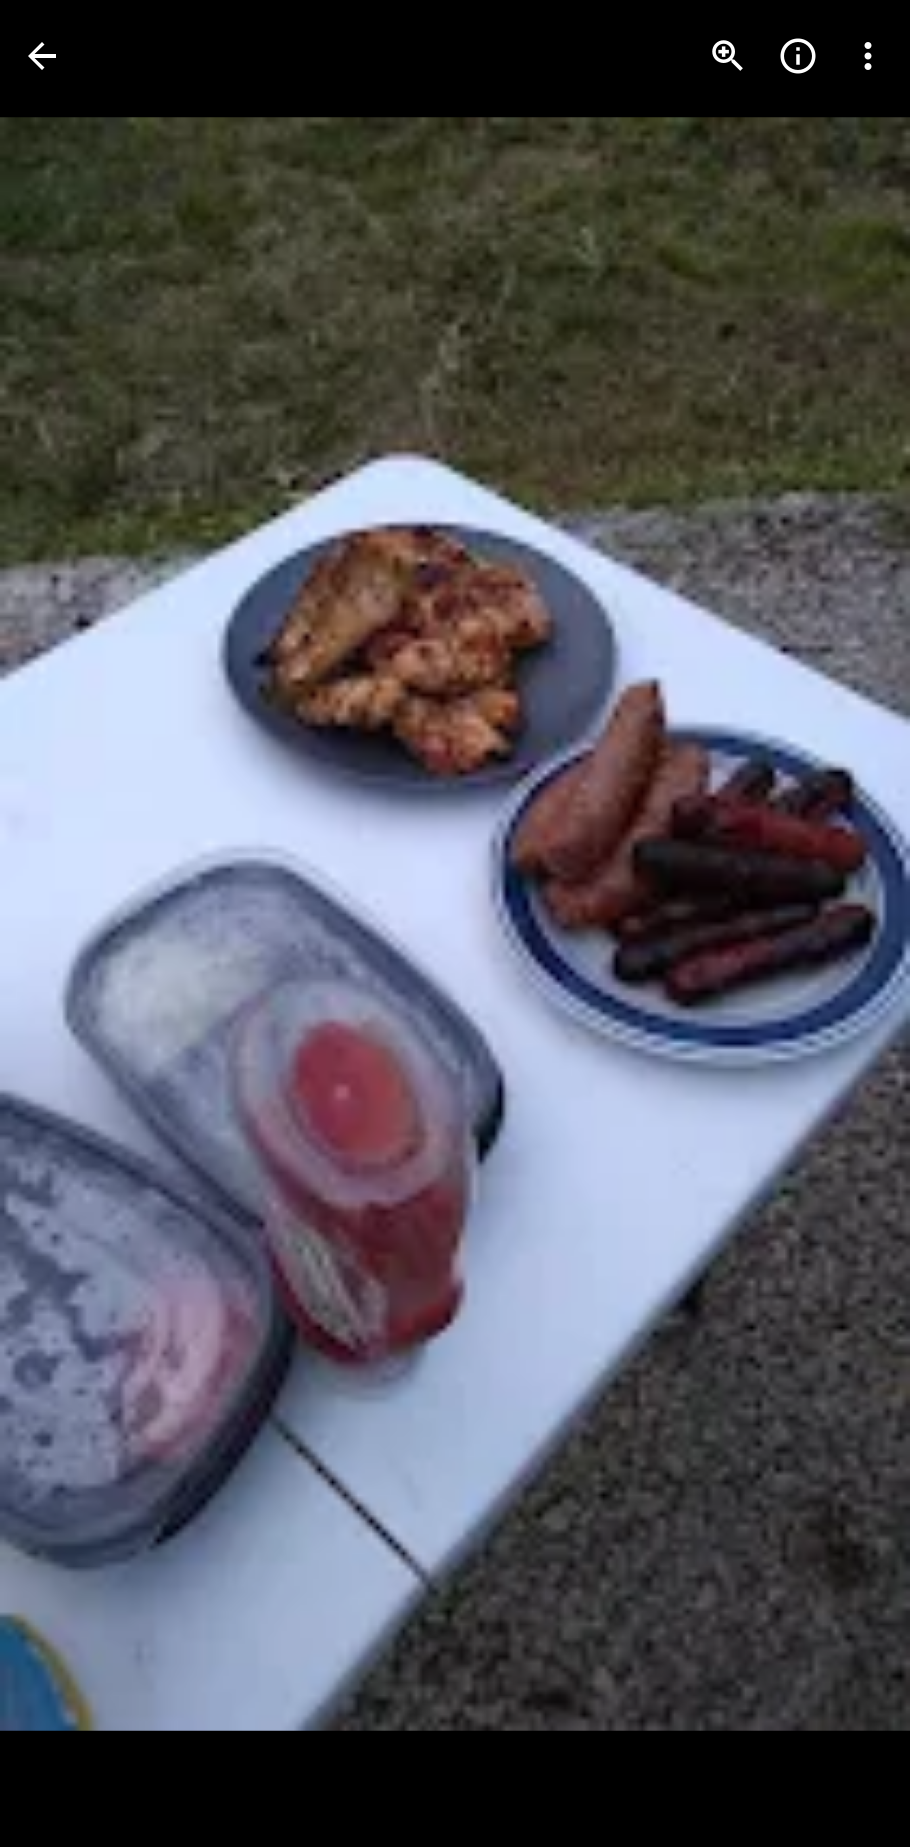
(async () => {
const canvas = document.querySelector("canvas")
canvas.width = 910
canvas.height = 1847
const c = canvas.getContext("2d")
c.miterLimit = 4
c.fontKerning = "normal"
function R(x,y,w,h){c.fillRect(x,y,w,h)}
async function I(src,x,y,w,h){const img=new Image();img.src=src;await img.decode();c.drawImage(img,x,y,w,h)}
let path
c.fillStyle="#000"
R(0,0,910,1847)
c.fillStyle="#fff"
path = new Path2D("M56 54h-21.5l10-9.5l-2.5-2.5l-14 14l14 14l2.5-2.5l-10-9.5h21.5z")
c.fill(path)
await I("1.png",712,40,31,31)
await I("2.png",780,38,36,36)
await I("3.png",864,42,8,28)
await I("4.png",0,117,910,1614)
})()
